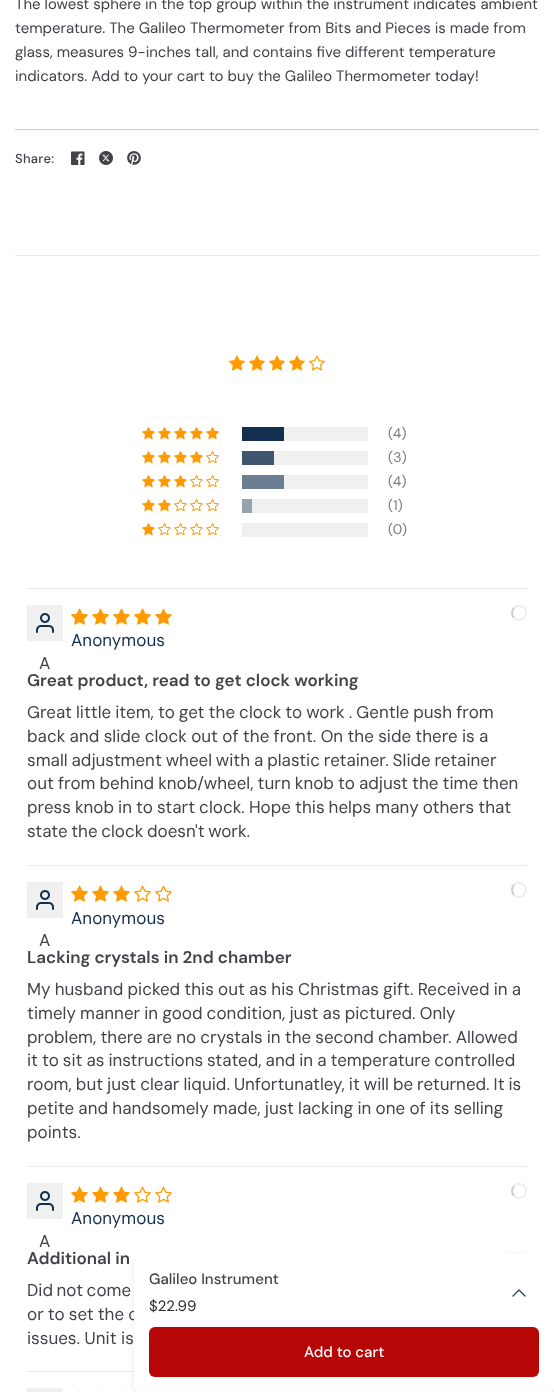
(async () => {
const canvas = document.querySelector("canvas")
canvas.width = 554
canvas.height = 1392
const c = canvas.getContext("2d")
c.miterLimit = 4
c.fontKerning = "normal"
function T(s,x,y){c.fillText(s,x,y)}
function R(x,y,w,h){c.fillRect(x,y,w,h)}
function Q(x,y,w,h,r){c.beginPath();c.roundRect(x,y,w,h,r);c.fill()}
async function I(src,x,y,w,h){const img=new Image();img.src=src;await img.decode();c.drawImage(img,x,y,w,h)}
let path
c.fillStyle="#fff"
R(0,0,554,1392)
c.font="15px DM Sans"
c.fillStyle="#444249"
T("The lowest sphere in the top group within the instrument indicates ambient",15,9)
T("temperature. The Galileo Thermometer from Bits and Pieces is made from",15,33)
T("glass, measures 9-inches tall, and contains five different temperature",15,57)
T("indicators. Add to your cart to buy the Galileo Thermometer today!",15,81)
c.fillStyle="#ccc"
R(15,129,524,1)
c.letterSpacing="0.25px"
c.font="500 13px DM Sans"
c.fillStyle="#444249"
T("Share:",15,163)
await I("1.png",71,151,14,14)
await I("2.png",99,151,14,14)
await I("3.png",127,151,14,14)
c.fillStyle="#e7eaee"
R(27,1371,107,1)
c.fillStyle="#00000014"
c.filter="blur(3px)"
c.beginPath()
c.roundRect(134,1258,420,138,6)
c.fill()
c.filter="none"
c.letterSpacing="0px"
c.wordSpacing="-0.5px"
c.font="17px 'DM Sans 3'"
c.fillStyle="#444249"
T("or to set the c",27,1320)
c.fillStyle="#00000026"
c.filter="blur(5px)"
c.beginPath()
c.roundRect(498,1258,36,36,18)
c.fill()
c.filter="none"
c.fillStyle="#fff"
Q(134,1254,420,138,6)
c.wordSpacing="0px"
c.font="500 15px 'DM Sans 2'"
c.fillStyle="#444249"
T("Galileo Instrument",149,1284)
c.font="15px DM Sans"
c.fillStyle="#2c2d2e"
T("$22.99",149,1311)
path = new Path2D("M525 1296l-6-6l-6 6")
c.strokeStyle="#264464"
c.lineWidth=1.3
c.lineCap="round"
c.lineJoin="round"
c.stroke(path)
c.fillStyle="#b70606"
Q(149,1327,390,50,6)
c.font="500 15px 'DM Sans 2'"
c.fillStyle="#fff"
T("Add to cart",304,1357)
c.fillStyle="#ebebed"
R(15,255,524,1)
await I("4.png",229,355,16,16)
await I("4.png",249,355,16,16)
await I("4.png",269,355,16,16)
await I("4.png",289,355,16,16)
await I("5.png",309,355,16,16)
await I("6.png",142,427,13,13)
await I("6.png",158,427,13,13)
await I("6.png",174,427,13,13)
await I("6.png",190,427,13,13)
await I("6.png",206,427,13,13)
c.fillStyle="#f0f0f0"
R(284,427,84,14)
c.fillStyle="#133050"
R(242,427,42,14)
c.font="14px 'DM Sans 2'"
c.fillStyle="#7b7b7b"
T("(4)",388,438)
await I("6.png",142,451,13,13)
await I("6.png",158,451,13,13)
await I("6.png",174,451,13,13)
await I("6.png",190,451,13,13)
await I("7.png",206,451,13,13)
c.fillStyle="#f0f0f0"
R(274,451,94,14)
c.fillStyle="#3f5670"
R(242,451,32,14)
c.fillStyle="#7b7b7b"
T("(3)",388,462)
await I("6.png",142,475,13,13)
await I("6.png",158,475,13,13)
await I("6.png",174,475,13,13)
await I("7.png",190,475,13,13)
await I("7.png",206,475,13,13)
c.fillStyle="#f0f0f0"
R(284,475,84,14)
c.fillStyle="#6b7d90"
R(242,475,42,14)
c.fillStyle="#7b7b7b"
T("(4)",388,486)
await I("6.png",142,499,13,13)
await I("6.png",158,499,13,13)
await I("7.png",174,499,13,13)
await I("7.png",190,499,13,13)
await I("7.png",206,499,13,13)
c.fillStyle="#f0f0f0"
R(252,499,116,14)
c.fillStyle="#98a3b0"
R(242,499,10,14)
c.fillStyle="#7b7b7b"
T("(1)",388,510)
await I("6.png",142,523,13,13)
await I("7.png",158,523,13,13)
await I("7.png",174,523,13,13)
await I("7.png",190,523,13,13)
await I("7.png",206,523,13,13)
c.fillStyle="#f0f0f0"
R(242,523,126,14)
c.fillStyle="#7b7b7b"
T("(0)",388,534)
c.fillStyle="#e7eaee"
R(27,588,500,1)
await I("8.png",71,608,17,17)
await I("8.png",92,608,17,17)
await I("8.png",113,608,17,17)
await I("8.png",134,608,17,17)
await I("8.png",155,608,17,17)
path = new Path2D("M514 608c1.5-1.5 4-2.5 6.5-2c8 2 7 14-1.5 14c-2 0-3.5-.5-5-2")
c.strokeStyle="#eee"
c.lineWidth=2
c.lineCap="butt"
c.lineJoin="miter"
c.stroke(path)
path = new Path2D("M514 618c-2.5-2.5-2.5-7.5 0-10")
c.strokeStyle="#ccc"
c.stroke(path)
c.font="17px 'DM Sans 3'"
c.fillStyle="#133050"
T("Anonymous",71,646)
c.fillStyle="#f0f0f0"
R(27,605,36,36)
await I("9.png",36,613,18,20)
c.fillStyle="#444249"
T("A",39,669)
c.font="600 17px DM Sans"
T("Great product, read to get clock working",27,686)
c.wordSpacing="-0.5px"
c.font="17px 'DM Sans 3'"
T("Great little item, to get the clock to work . Gentle push from",27,718)
c.wordSpacing="-0.3px"
T("back and slide clock out of the front. On the side there is a",27,742)
c.wordSpacing="-0.75px"
T("small adjustment wheel with a plastic retainer. Slide retainer",27,766)
c.wordSpacing="-0.5px"
T("out from behind knob/wheel, turn knob to adjust the time then",27,789)
T("press knob in to start clock. Hope this helps many others that",27,813)
c.wordSpacing="-1px"
T("state the clock doesn't work.",27,837)
c.fillStyle="#e7eaee"
R(27,865,500,1)
await I("8.png",71,885,17,17)
await I("8.png",92,885,17,17)
await I("8.png",113,885,17,17)
await I("10.png",134,885,17,17)
await I("10.png",155,885,17,17)
path = new Path2D("M514 885c1.5-1.5 4-2.5 6.5-2c8 2 7 14-1.5 14c-2 0-3.5-.5-5-2")
c.strokeStyle="#eee"
c.stroke(path)
path = new Path2D("M514 895c-2.5-2.5-2.5-7.5 0-10")
c.strokeStyle="#ccc"
c.stroke(path)
c.wordSpacing="0px"
c.fillStyle="#133050"
T("Anonymous",71,924)
c.fillStyle="#f0f0f0"
R(27,882,36,36)
await I("9.png",36,890,18,20)
c.fillStyle="#444249"
T("A",39,946)
c.font="600 17px DM Sans"
T("Lacking crystals in 2nd chamber",27,963)
c.wordSpacing="-0.4px"
c.font="17px 'DM Sans 3'"
T("My husband picked this out as his Christmas gift. Received in a",27,995)
c.wordSpacing="-0.5px"
T("timely manner in good condition, just as pictured. Only",27,1019)
T("problem, there are no crystals in the second chamber. Allowed",27,1043)
c.wordSpacing="-0.6px"
T("it to sit as instructions stated, and in a temperature controlled",27,1066)
T("room, but just clear liquid. Unfortunatley, it will be returned. It is",27,1090)
c.wordSpacing="-0.4px"
T("petite and handsomely made, just lacking in one of its selling",27,1114)
c.wordSpacing="0px"
T("points.",27,1138)
c.fillStyle="#e7eaee"
R(27,1166,500,1)
await I("8.png",71,1186,17,17)
await I("8.png",92,1186,17,17)
await I("8.png",113,1186,17,17)
await I("10.png",134,1186,17,17)
await I("10.png",155,1186,17,17)
path = new Path2D("M514 1186c1.5-1.5 4-2.5 6.5-2c8 2 7 14-1.5 14c-2 0-3.5-.5-5-2")
c.strokeStyle="#eee"
c.stroke(path)
path = new Path2D("M514 1196c-2.5-2.5-2.5-7.5 0-10")
c.strokeStyle="#ccc"
c.stroke(path)
c.fillStyle="#133050"
T("Anonymous",71,1224)
c.fillStyle="#f0f0f0"
R(27,1183,36,36)
await I("9.png",36,1191,18,20)
c.fillStyle="#444249"
T("A",39,1247)
c.font="600 17px DM Sans"
T("Additional in",27,1264)
c.wordSpacing="-1px"
c.font="17px 'DM Sans 3'"
T("Did not come",27,1296)
c.wordSpacing="0px"
T("issues. Unit is",27,1344)
c.fillStyle="#f0f0f0"
R(27,1388,36,4)
c.fillStyle="#ffdda8"
R(79,1391,1,1)
R(100,1391,1,1)
R(121,1391,1,1)
})()
